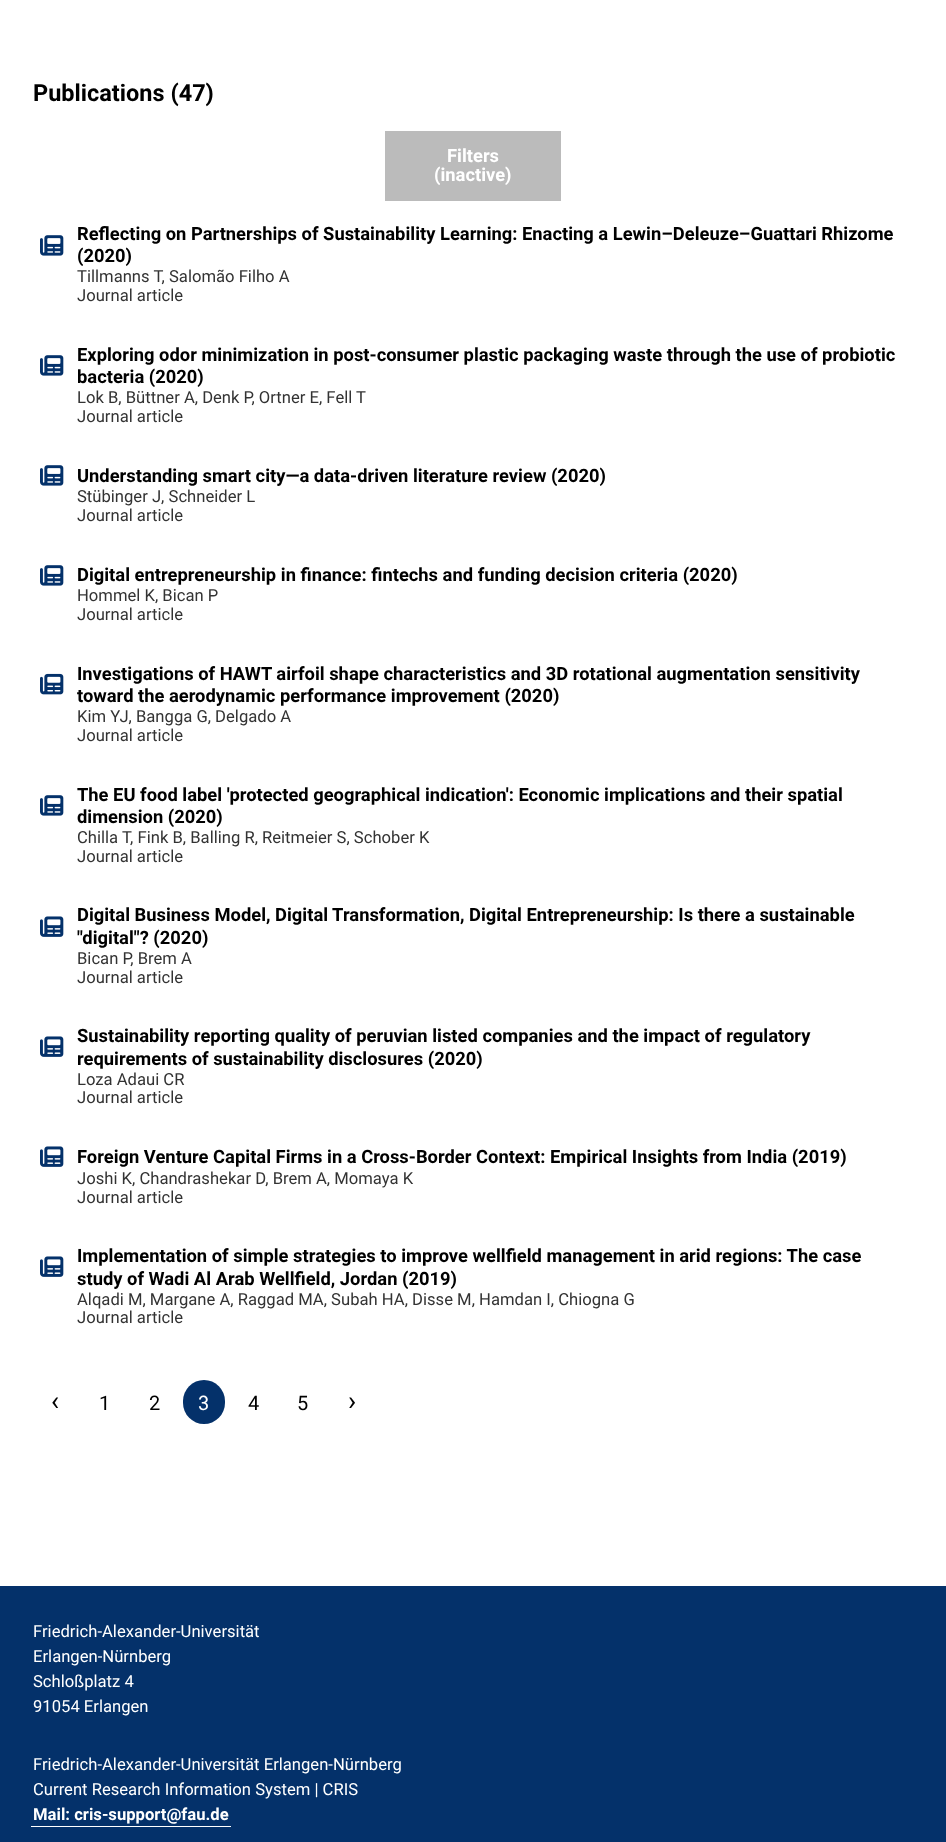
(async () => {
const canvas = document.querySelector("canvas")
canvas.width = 946
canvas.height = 1842
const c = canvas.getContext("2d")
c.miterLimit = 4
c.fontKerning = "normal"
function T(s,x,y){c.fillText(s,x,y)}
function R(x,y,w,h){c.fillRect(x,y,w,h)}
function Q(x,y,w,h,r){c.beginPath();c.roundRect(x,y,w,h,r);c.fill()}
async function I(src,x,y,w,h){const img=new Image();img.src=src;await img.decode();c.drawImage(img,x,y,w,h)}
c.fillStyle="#fff"
R(0,0,946,1842)
c.font="bold 23.5px Roboto"
c.fillStyle="#000"
T("Publications (47)",33,101)
c.fillStyle="#bbb"
R(385,131,176,70)
c.font="bold 18.35px Roboto"
c.fillStyle="#fff"
T("Filters",447,162)
T("(inactive)",434,181)
await I("1.png",40,235,24,21)
c.fillStyle="#000"
T("Reflecting on Partnerships of Sustainability Learning: Enacting a Lewin–Deleuze–Guattari Rhizome",77,240)
T("(2020)",77,262)
c.font="16.65px Roboto"
c.fillStyle="#333"
T("Tillmanns T, Salomão Filho A",77,282)
T("Journal article",77,301)
await I("1.png",40,355,24,21)
c.font="bold 18.35px Roboto"
c.fillStyle="#000"
T("Exploring odor minimization in post-consumer plastic packaging waste through the use of probiotic",77,361)
T("bacteria (2020)",77,383)
c.font="16.65px Roboto"
c.fillStyle="#333"
T("Lok B, Büttner A, Denk P, Ortner E, Fell T",77,403)
T("Journal article",77,422)
await I("1.png",40,465,24,21)
c.font="bold 18.35px Roboto"
c.fillStyle="#000"
T("Understanding smart city—a data-driven literature review (2020)",77,482)
c.font="16.65px Roboto"
c.fillStyle="#333"
T("Stübinger J, Schneider L",77,502)
T("Journal article",77,521)
await I("1.png",40,565,24,21)
c.font="bold 18.35px Roboto"
c.fillStyle="#000"
T("Digital entrepreneurship in finance: fintechs and funding decision criteria (2020)",77,581)
c.font="16.65px Roboto"
c.fillStyle="#333"
T("Hommel K, Bican P",77,601)
T("Journal article",77,620)
await I("2.png",40,673,24,22)
c.font="bold 18.35px Roboto"
c.fillStyle="#000"
T("Investigations of HAWT airfoil shape characteristics and 3D rotational augmentation sensitivity",77,680)
T("toward the aerodynamic performance improvement (2020)",77,702)
c.font="16.65px Roboto"
c.fillStyle="#333"
T("Kim YJ, Bangga G, Delgado A",77,722)
T("Journal article",77,741)
await I("1.png",40,795,24,21)
c.font="bold 18.35px Roboto"
c.fillStyle="#000"
T("The EU food label 'protected geographical indication': Economic implications and their spatial",77,801)
T("dimension (2020)",77,823)
c.font="16.65px Roboto"
c.fillStyle="#333"
T("Chilla T, Fink B, Balling R, Reitmeier S, Schober K",77,843)
T("Journal article",77,862)
await I("3.png",40,916,24,21)
c.font="bold 18.35px Roboto"
c.fillStyle="#000"
T("Digital Business Model, Digital Transformation, Digital Entrepreneurship: Is there a sustainable",77,921)
T("\"digital\"? (2020)",77,944)
c.font="16.65px Roboto"
c.fillStyle="#333"
T("Bican P, Brem A",77,964)
T("Journal article",77,983)
await I("3.png",40,1036,24,21)
c.font="bold 18.35px Roboto"
c.fillStyle="#000"
T("Sustainability reporting quality of peruvian listed companies and the impact of regulatory",77,1042)
T("requirements of sustainability disclosures (2020)",77,1065)
c.font="16.65px Roboto"
c.fillStyle="#333"
T("Loza Adaui CR",77,1085)
T("Journal article",77,1103)
await I("3.png",40,1146,24,21)
c.font="bold 18.35px Roboto"
c.fillStyle="#000"
T("Foreign Venture Capital Firms in a Cross-Border Context: Empirical Insights from India (2019)",77,1163)
c.font="16.65px Roboto"
c.fillStyle="#333"
T("Joshi K, Chandrashekar D, Brem A, Momaya K",77,1184)
T("Journal article",77,1203)
await I("3.png",40,1256,24,21)
c.font="bold 18.35px Roboto"
c.fillStyle="#000"
T("Implementation of simple strategies to improve wellfield management in arid regions: The case",77,1262)
T("study of Wadi Al Arab Wellfield, Jordan (2019)",77,1285)
c.font="16.65px Roboto"
c.fillStyle="#333"
T("Alqadi M, Margane A, Raggad MA, Subah HA, Disse M, Hamdan I, Chiogna G",77,1305)
T("Journal article",77,1323)
c.font="27px Roboto"
c.fillStyle="#000"
T("‹",51,1410)
c.font="20px Roboto"
T("1",99,1410)
T("2",149,1410)
c.fillStyle="#04316a"
Q(183,1380,42,44,21)
c.fillStyle="#fff"
T("3",198,1410)
c.fillStyle="#000"
T("4",248,1410)
T("5",297,1410)
c.font="27px Roboto"
T("›",348,1410)
c.fillStyle="#04316a"
R(0,1586,946,256)
c.font="16.65px Roboto"
c.fillStyle="#fff"
T("Friedrich-Alexander-Universität",33,1637)
T("Erlangen-Nürnberg",33,1662)
T("Schloßplatz 4",33,1687)
T("91054 Erlangen",33,1712)
T("Friedrich-Alexander-Universität Erlangen-Nürnberg",33,1770)
T("Current Research Information System | CRIS",33,1795)
c.font="bold 16.65px Roboto"
T("Mail: cris-support@fau.de",33,1820)
R(31,1826,200,1)
})()
